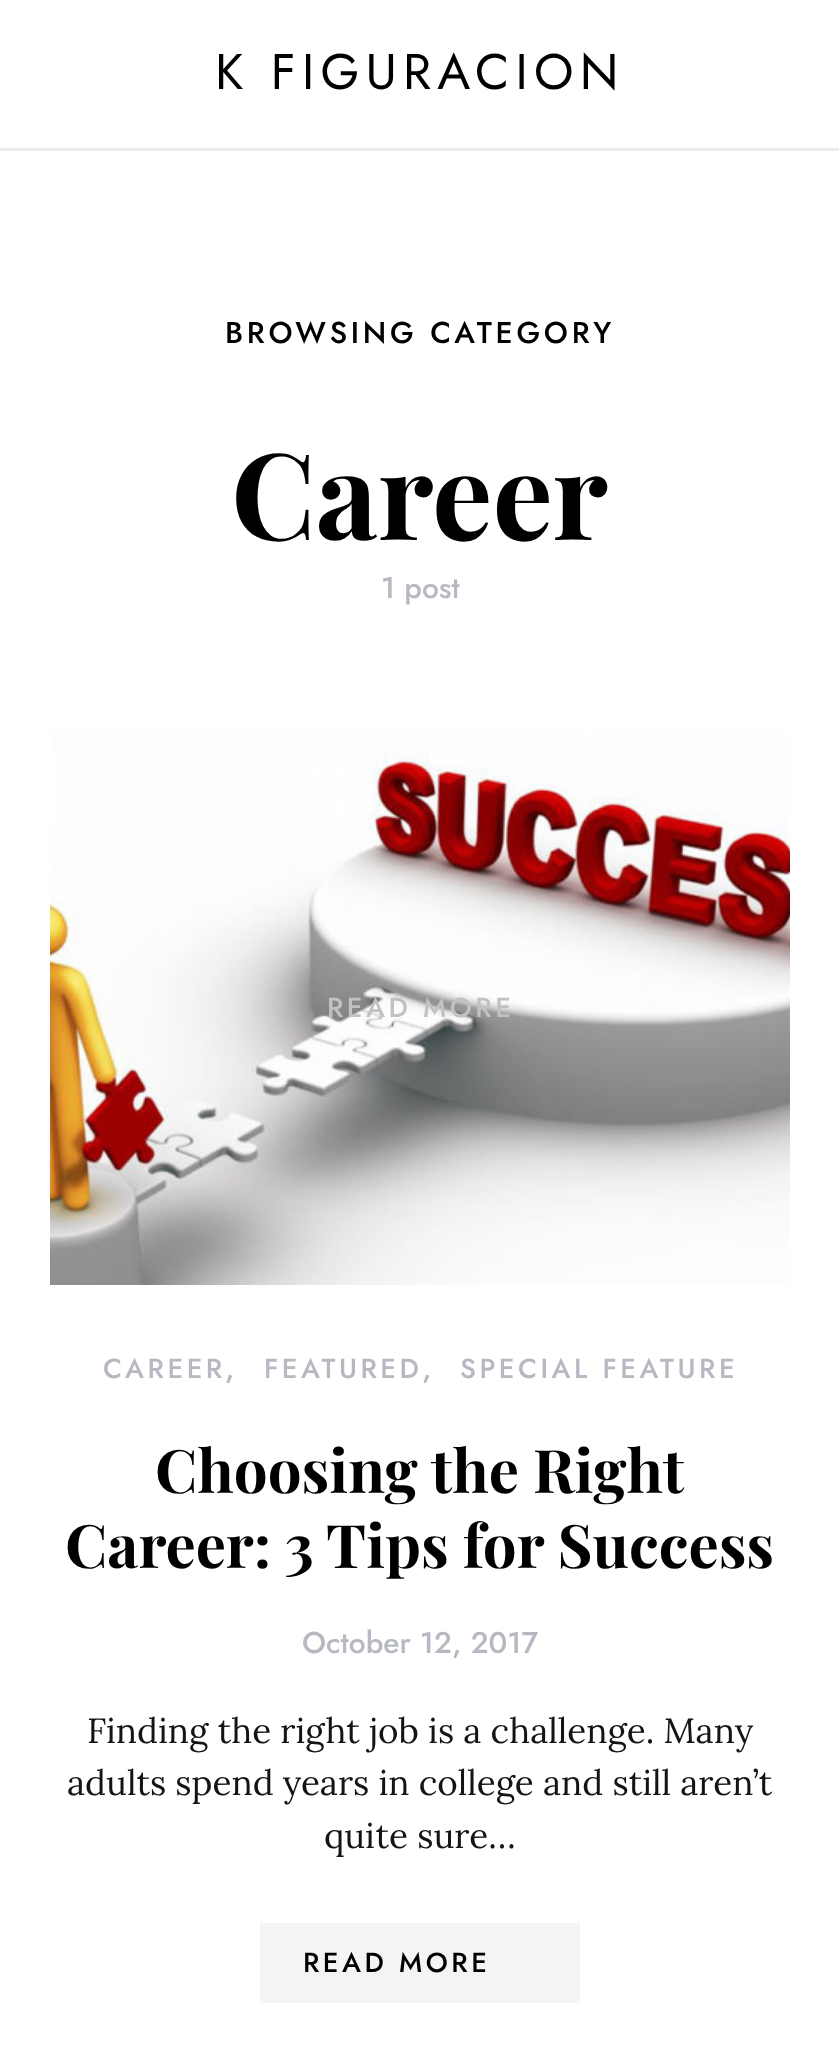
(async () => {
const canvas = document.querySelector("canvas")
canvas.width = 839
canvas.height = 2058
const c = canvas.getContext("2d")
c.miterLimit = 4
c.fontKerning = "normal"
function T(s,x,y){c.fillText(s,x,y)}
function R(x,y,w,h){c.fillRect(x,y,w,h)}
async function I(src,x,y,w,h){const img=new Image();img.src=src;await img.decode();c.drawImage(img,x,y,w,h)}
c.fillStyle="#fff"
R(0,0,839,2058)
c.fillStyle="#e9ecef"
R(0,148,839,3)
c.letterSpacing="6.25px"
c.font="50px Jost"
c.fillStyle="#000"
T("K FIGURACION",215,89)
c.letterSpacing="3.75px"
c.font="500 30px Jost"
T("BROWSING CATEGORY",225,343)
c.letterSpacing="0px"
c.font="bold 120px Playfair Display"
T("Career",231,540)
c.font="500 30px Jost"
c.fillStyle="#b7b9c2"
T("1 post",381,598)
await I("1.png",50,730,740,555)
c.letterSpacing="3.5px"
c.font="500 27.5px Jost"
c.fillStyle="#c2c2c2"
T("READ MORE",327,1017)
c.fillStyle="#b7b9c2"
T("CAREER",103,1378)
c.letterSpacing="0px"
c.font="500 30px Jost"
T(",",225,1378)
c.letterSpacing="3.5px"
c.font="500 27.5px Jost"
T("FEATURED",264,1378)
c.letterSpacing="0px"
c.font="500 30px Jost"
T(",",422,1378)
c.letterSpacing="3.5px"
c.font="500 27.5px Jost"
T("SPECIAL FEATURE",460,1378)
c.letterSpacing="0px"
c.font="bold 60px Playfair Display"
c.fillStyle="#000"
T("Choosing the Right",155,1493)
T("Career: 3 Tips for Success",65,1568)
c.font="500 30px Jost"
c.fillStyle="#b7b9c2"
T("October 12, 2017",302,1653)
c.font="35px Lora"
c.fillStyle="#121416"
T("Finding the right job is a challenge. Many",87,1743)
T("adults spend years in college and still aren’t",67,1795)
T("quite sure…",324,1848)
c.fillStyle="#f2f4f6"
R(260,1923,320,80)
c.letterSpacing="3.5px"
c.font="500 27.5px Jost"
c.fillStyle="#000"
T("READ MORE",303,1972)
})()
